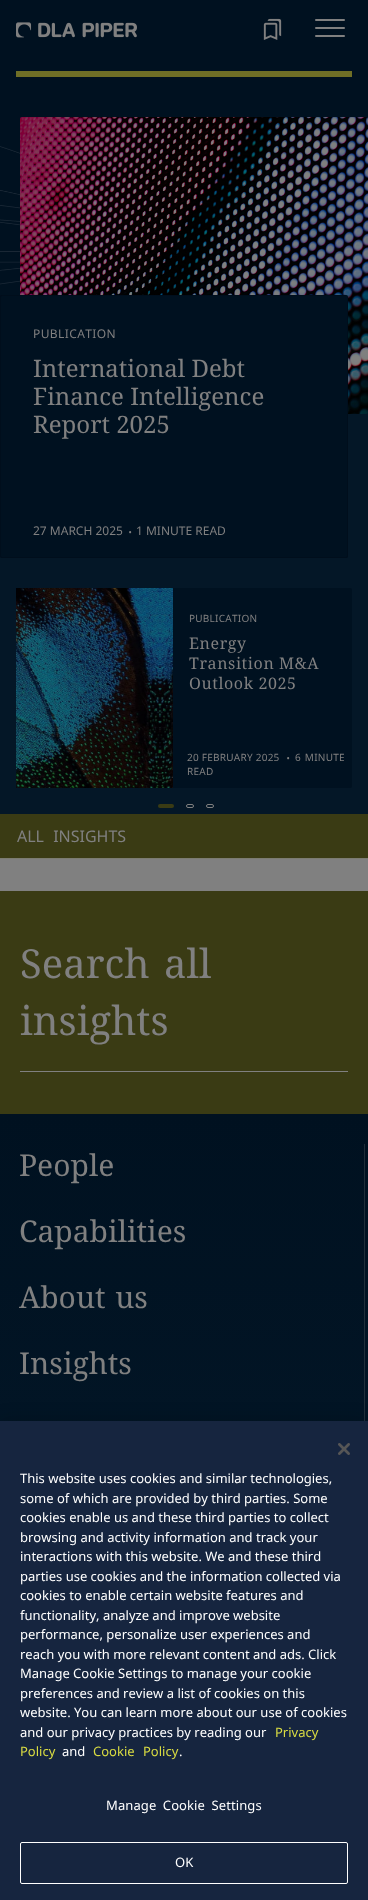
(async () => {
const canvas = document.querySelector("canvas")
canvas.width = 368
canvas.height = 1900
const c = canvas.getContext("2d")
c.miterLimit = 4
c.fontKerning = "normal"
function T(s,x,y){c.fillText(s,x,y)}
function R(x,y,w,h){c.fillRect(x,y,w,h)}
function Q(x,y,w,h,r){c.beginPath();c.roundRect(x,y,w,h,r);c.fill()}
async function I(src,x,y,w,h){const img=new Image();img.src=src;await img.decode();c.drawImage(img,x,y,w,h)}
let gradient
c.fillStyle="#808080"
R(0,0,368,1900)
c.fillStyle="#001120"
R(0,0,368,77)
await I("1.png",16,22,16,16)
await I("2.png",38,22,99,16)
await I("3.png",263,18,19,22)
c.fillStyle="#808080"
Q(315,19,30,2,1)
Q(315,27,30,2,1)
Q(315,35,30,2,1)
c.fillStyle="#6f6f26"
R(16,71,336,6)
c.fillStyle="#041727"
R(0,412,368,402)
await I("4.png",0,77,368,220)
await I("5.png",20,117,348,297)
c.fillStyle="#001120"
Q(0,295,348,263,2)
c.beginPath()
c.roundRect(.5,295.5,347,262,1.5)
c.strokeStyle="#0000001f"
c.stroke()
c.letterSpacing="0.4px"
c.font="12px Noto Sans"
c.fillStyle="#808080"
T("PUBLICATION",33,338)
c.letterSpacing="0px"
c.font="24px Noto Serif"
T("International Debt",33,377)
T("Finance Intelligence",33,405)
T("Report 2025",33,433)
c.font="12px Noto Sans"
T("27 MARCH 2025",33,535)
c.font="16px Noto Sans"
T(".",128,533)
c.font="12px Noto Sans"
T("1 MINUTE READ",136,535)
c.fillStyle="#001120"
Q(16,588,336,200,2)
await I("6.png",16,588,157,200)
c.letterSpacing="0.25px"
c.font="10px Noto Sans"
c.fillStyle="#808080"
T("PUBLICATION",189,622)
c.letterSpacing="0.6px"
c.font="16px Noto Serif"
T("Energy",189,649)
T("Transition M&A",189,669)
T("Outlook 2025",189,689)
c.letterSpacing="0.25px"
c.font="10px Noto Sans"
T("20 FEBRUARY 2025",187,761)
c.font="16px Noto Sans"
T(".",286,759)
c.wordSpacing="1px"
c.font="10px Noto Sans"
T("6 MINUTE",295,761)
c.wordSpacing="0px"
T("READ",187,775)
c.fillStyle="#3a3b14"
Q(158,804,16,4,2)
c.beginPath()
c.roundRect(186.5,804.5,7,3,1.5)
c.strokeStyle="#808080"
c.stroke()
c.beginPath()
c.roundRect(206.5,804.5,7,3,1.5)
c.stroke()
R(0,814,368,44)
c.fillStyle="#7c7c71"
R(0,858,368,1)
c.letterSpacing="0px"
c.wordSpacing="5px"
c.font="16px Noto Sans"
c.fillStyle="#808080"
T("ALL INSIGHTS",17,842)
c.fillStyle="#3a3b14"
R(0,891,368,223)
c.wordSpacing="4px"
c.font="40px Noto Serif"
c.fillStyle="#808080"
T("Search all",20,978)
c.wordSpacing="0px"
T("insights",20,1035)
R(20,1071,328,1)
gradient = c.createLinearGradient(184,1114,184,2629)
gradient.addColorStop(0,"#001120")
gradient.addColorStop(1,"#0a243a")
c.fillStyle = gradient
R(0,1114,368,307)
gradient = c.createLinearGradient(184,1114,184,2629)
gradient.addColorStop(0,"#202d38")
gradient.addColorStop(1,"#283b4c")
c.fillStyle = gradient
R(364,1144,1,277)
c.font="30px Noto Serif"
c.fillStyle="#808080"
T("People",19,1176)
T("Capabilities",19,1242)
c.wordSpacing="2px"
T("About us",19,1308)
c.wordSpacing="0px"
T("Insights",19,1374)
c.fillStyle="#00000033"
c.filter="blur(9px)"
c.beginPath()
c.rect(0,1421,368,479)
c.fill()
c.filter="none"
c.fillStyle="#16253f"
R(0,1421,368,479)
await I("7.png",338,1443,12,12)
c.font="13px Noto Sans"
c.fillStyle="#fff"
T("This website uses cookies and similar technologies,",20,1483)
T("some of which are provided by third parties. Some",20,1503)
T("cookies enable us and these third parties to collect",20,1522)
T("browsing and activity information and track your",20,1542)
T("interactions with this website. We and these third",20,1561)
T("parties use cookies and the information collected via",20,1581)
T("cookies to enable certain website features and",20,1600)
T("functionality, analyze and improve website",20,1620)
T("performance, personalize user experiences and",20,1639)
T("reach you with more relevant content and ads. Click",20,1659)
T("Manage Cookie Settings to manage your cookie",20,1678)
T("preferences and review a list of cookies on this",20,1698)
T("website. You can learn more about our use of cookies",20,1717)
T("and our privacy practices by reading our",20,1737)
c.fillStyle="#d9dc42"
T("Privacy",275,1737)
T("Policy",20,1756)
c.fillStyle="#fff"
T("and",62,1756)
c.wordSpacing="5px"
c.fillStyle="#d9dc42"
T("Cookie Policy",93,1756)
c.wordSpacing="0px"
c.fillStyle="#fff"
T(".",179,1756)
c.letterSpacing="0.1px"
c.wordSpacing="3px"
T("Manage Cookie Settings",106,1810)
c.beginPath()
c.roundRect(20.5,1842.5,327,41,1.5)
c.strokeStyle="#fff"
c.stroke()
c.wordSpacing="0px"
T("OK",175,1867)
})()
